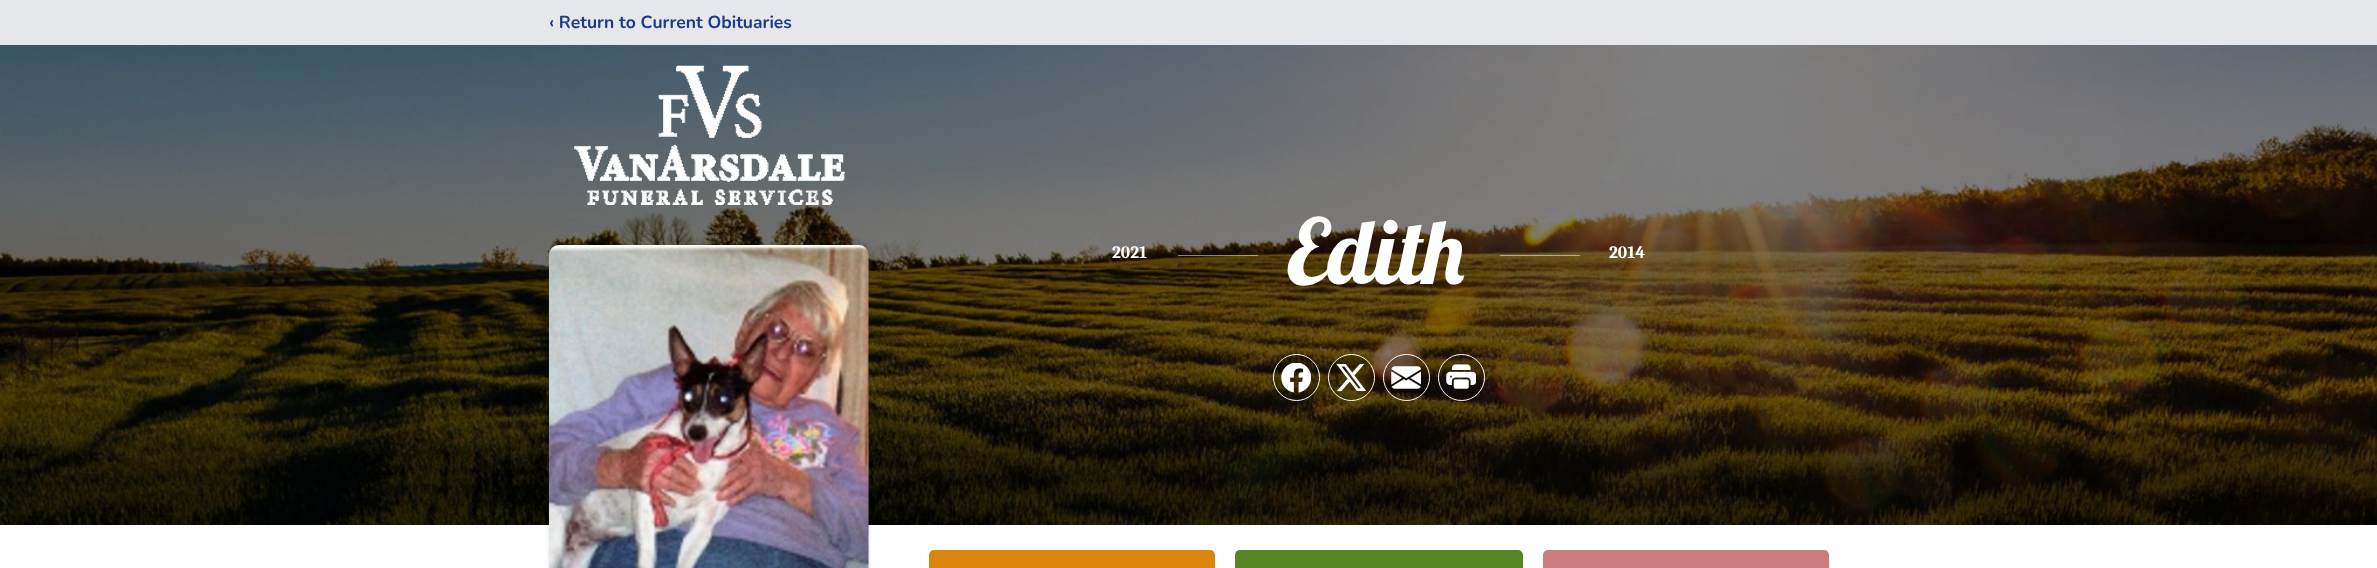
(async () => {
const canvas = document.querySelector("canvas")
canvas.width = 2377
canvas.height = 568
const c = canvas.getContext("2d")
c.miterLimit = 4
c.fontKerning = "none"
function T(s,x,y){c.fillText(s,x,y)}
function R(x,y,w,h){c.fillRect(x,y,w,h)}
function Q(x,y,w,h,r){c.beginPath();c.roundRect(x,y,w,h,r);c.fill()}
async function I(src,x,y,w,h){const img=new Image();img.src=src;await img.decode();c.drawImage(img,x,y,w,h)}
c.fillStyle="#fff"
R(0,0,2377,568)
c.fillStyle="#e5e7eb"
R(0,0,2377,45)
c.font="bold 17.5px Nunito"
c.fillStyle="#1e3a8a"
T("‹ Return to Current Obituaries",549,28)
await I("1.png",0,45,2377,480)
await I("2.png",574,65,271,140)
c.fillStyle="#0000001a"
c.filter="blur(2px)"
c.beginPath()
c.roundRect(549,246,320,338,10)
c.fill()
c.filter="none"
await I("3.png",548,245,321,323)
c.font="bold 17.5px Caladea"
c.fillStyle="#fff"
T("2021",1112,258)
c.fillStyle="#ffffff80"
R(1178,255,80,1)
c.font="90px Lobster"
c.fillStyle="#fff"
T("Edith",1287,284)
c.fillStyle="#ffffff80"
R(1500,255,80,1)
c.font="bold 17.5px Caladea"
c.fillStyle="#fff"
T("2014",1609,258)
c.beginPath()
c.arc(1296.5,377.5,23,0,7)
c.strokeStyle="#fff"
c.stroke()
c.fillStyle="#00000033"
c.beginPath()
c.arc(1296.5,377.5,22.5,0,7)
c.fill()
await I("4.png",1281,363,30,30)
c.beginPath()
c.arc(1351.5,377.5,23,0,7)
c.stroke()
c.beginPath()
c.arc(1351.5,377.5,22.5,0,7)
c.fill()
await I("5.png",1336,363,30,29)
c.beginPath()
c.arc(1406.5,377.5,23,0,7)
c.stroke()
c.beginPath()
c.arc(1406.5,377.5,22.5,0,7)
c.fill()
await I("6.png",1391,366,30,23)
c.beginPath()
c.arc(1461.5,377.5,23,0,7)
c.stroke()
c.beginPath()
c.arc(1461.5,377.5,22.5,0,7)
c.fill()
await I("7.png",1446,364,30,25)
c.fillStyle="#dc860d"
Q(929,550,286,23,5)
c.fillStyle="#588624"
Q(1235,550,288,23,5)
c.fillStyle="#cb7c7c"
Q(1543,550,286,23,5)
})()
